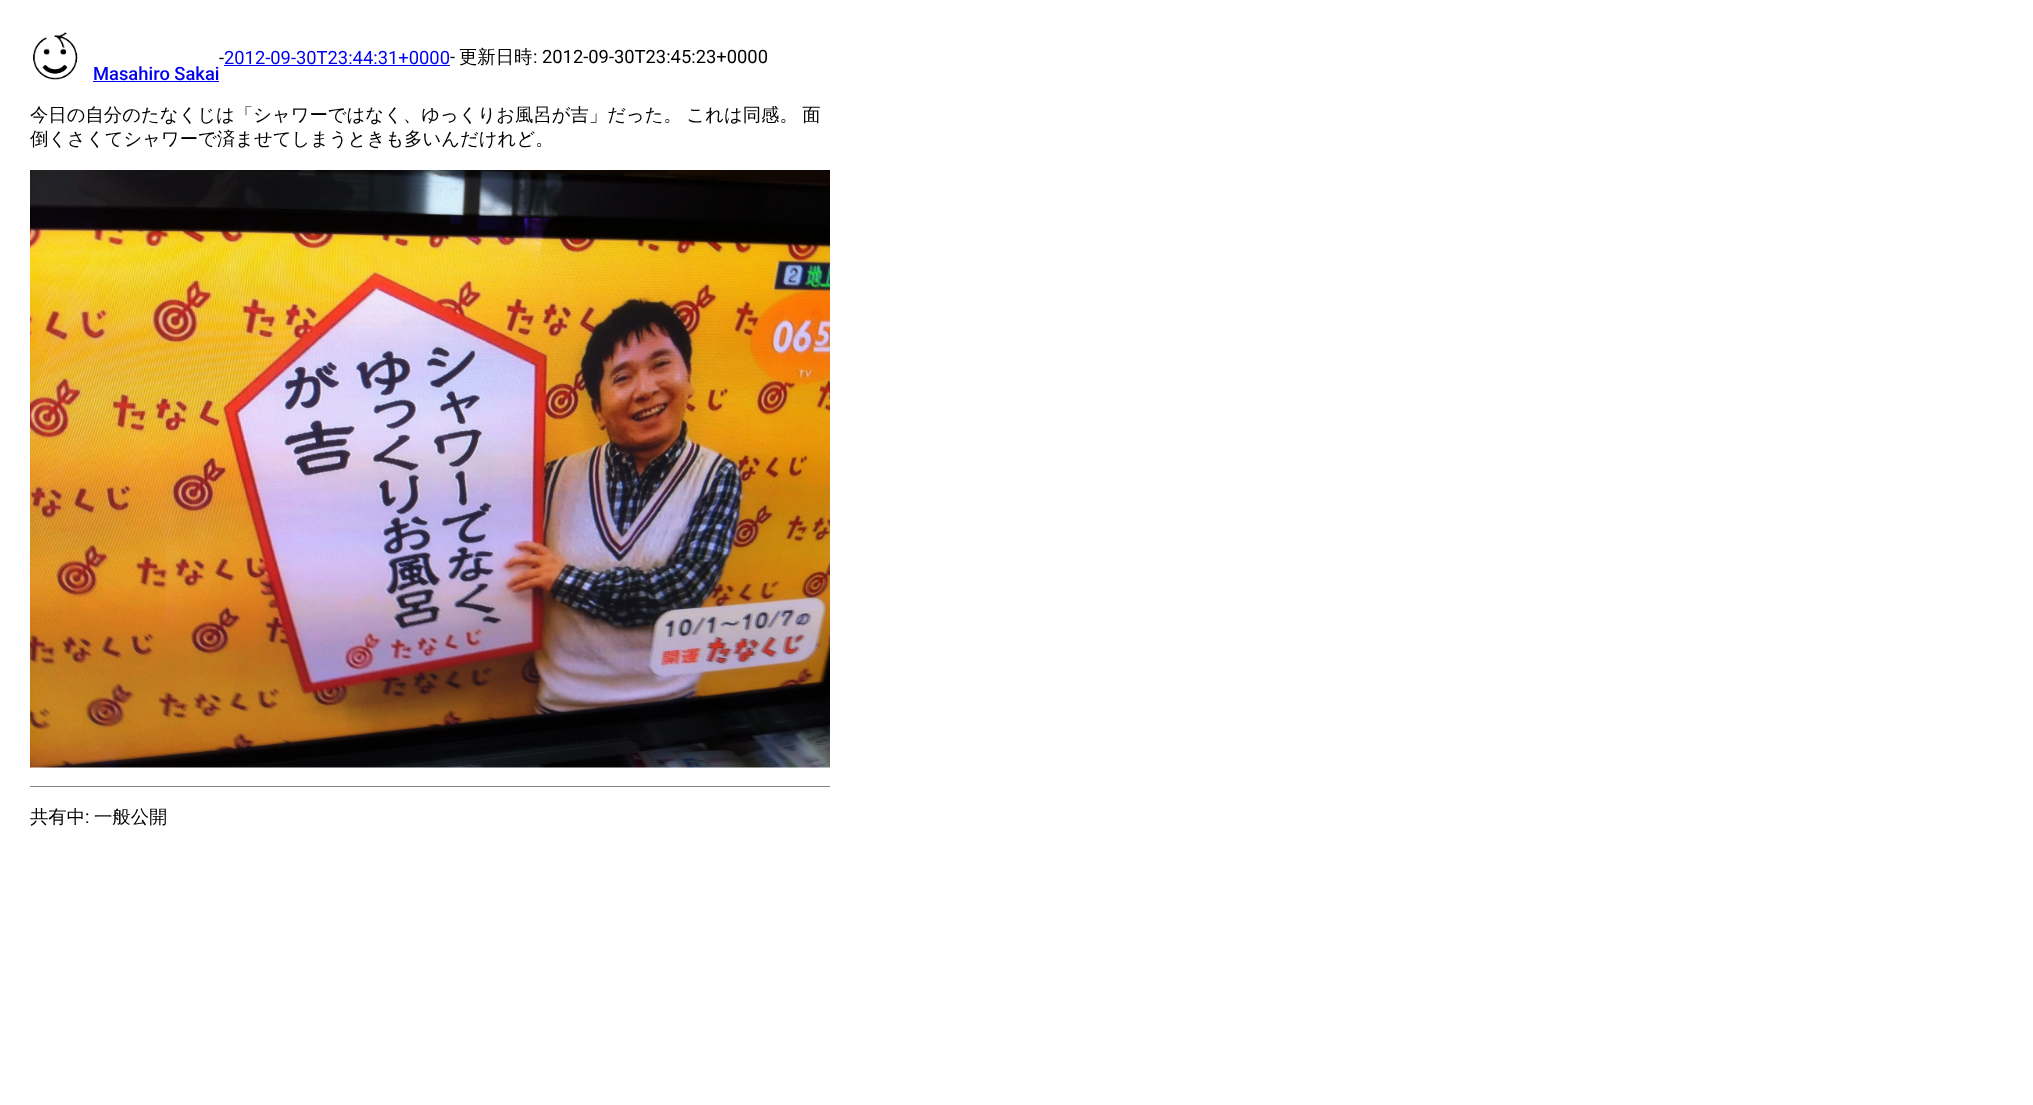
(async () => {
const canvas = document.querySelector("canvas")
canvas.width = 2033
canvas.height = 1105
const c = canvas.getContext("2d")
c.miterLimit = 4
c.fontKerning = "normal"
function T(s,x,y){c.fillText(s,x,y)}
function R(x,y,w,h){c.fillRect(x,y,w,h)}
async function I(src,x,y,w,h){const img=new Image();img.src=src;await img.decode();c.drawImage(img,x,y,w,h)}
c.fillStyle="#fff"
R(0,0,2033,1105)
c.font="18.35px Roboto"
c.fillStyle="#000"
T("-",219,64)
c.fillStyle="#00e"
T("2012-09-30T23:44:31+0000",224,64)
R(224,65,226,1)
c.fillStyle="#000"
T("-",450,63)
c.font="500 18.35px WenQuanYi Zen Hei"
T("更新日時",459,63)
c.font="18.35px Roboto"
T(": 2012-09-30T23:45:23+0000",533,63)
await I("1.png",32,32,46,48)
c.font="500 18.35px Roboto"
c.fillStyle="#00e"
T("Masahiro Sakai",93,80)
R(93,81,126,1)
c.wordSpacing="-1px"
c.font="500 18.35px WenQuanYi Zen Hei"
c.fillStyle="#000"
T("今日の自分のたなくじは「シャワーではなく、ゆっくりお風呂が吉」だった。 これは同感。 面",30,121)
c.wordSpacing="0px"
T("倒くさくてシャワーで済ませてしまうときも多いんだけれど。",30,145)
await I("2.png",30,170,800,598)
c.fillStyle="#808080"
R(30,786,800,1)
c.fillStyle="#000"
T("共有中",30,823)
c.font="18.35px Roboto"
T(":",85,823)
c.font="500 18.35px WenQuanYi Zen Hei"
T("一般公開",94,823)
})()
